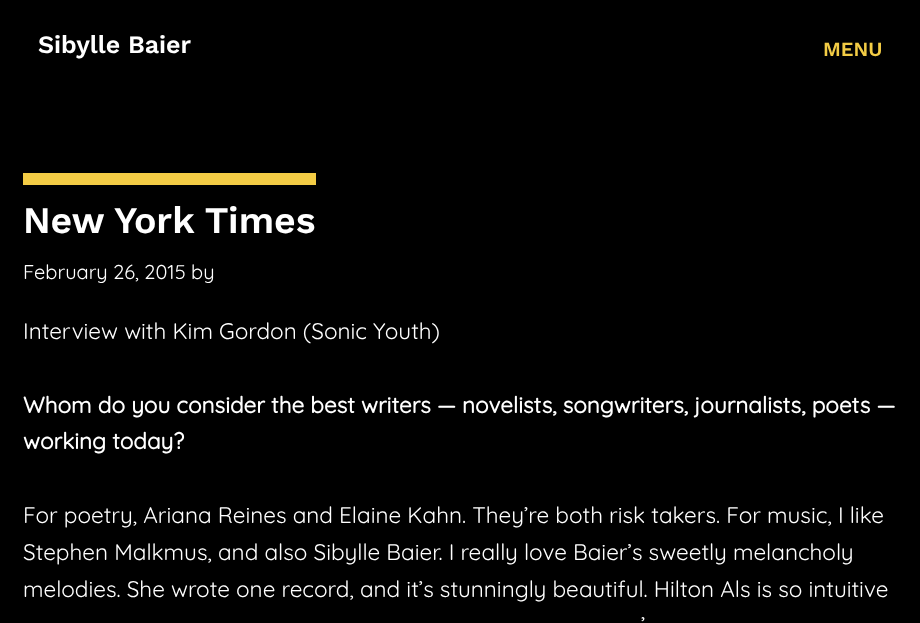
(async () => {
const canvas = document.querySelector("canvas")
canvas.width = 920
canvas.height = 623
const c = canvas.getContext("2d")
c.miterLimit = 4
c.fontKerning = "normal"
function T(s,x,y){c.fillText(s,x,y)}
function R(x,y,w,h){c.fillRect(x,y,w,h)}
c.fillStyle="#000"
R(0,0,920,623)
c.font="600 25px Work Sans"
c.fillStyle="#fff"
T("Sibylle Baier",38,53)
c.font="600 20px Work Sans"
c.fillStyle="#f3cc45"
T("MENU",823,56)
R(23,173,293,12)
c.font="600 37.5px Work Sans"
c.fillStyle="#fff"
T("New York Times",23,233)
c.font="300 20px Quicksand"
T("February 26, 2015 by",23,279)
c.font="300 22.5px Quicksand"
T("Interview with Kim Gordon (Sonic Youth)",23,339)
c.font="bold 22.5px Quicksand"
T("Whom do you consider the best writers — novelists, songwriters, journalists, poets —",23,413)
T("working today?",23,449)
c.font="300 22.5px Quicksand"
T("For poetry, Ariana Reines and Elaine Kahn. They’re both risk takers. For music, I like",23,523)
T("Stephen Malkmus, and also Sibylle Baier. I really love Baier’s sweetly melancholy",23,560)
T("melodies. She wrote one record, and it’s stunningly beautiful. Hilton Als is so intuitive",23,597)
T("’",641,633)
})()
